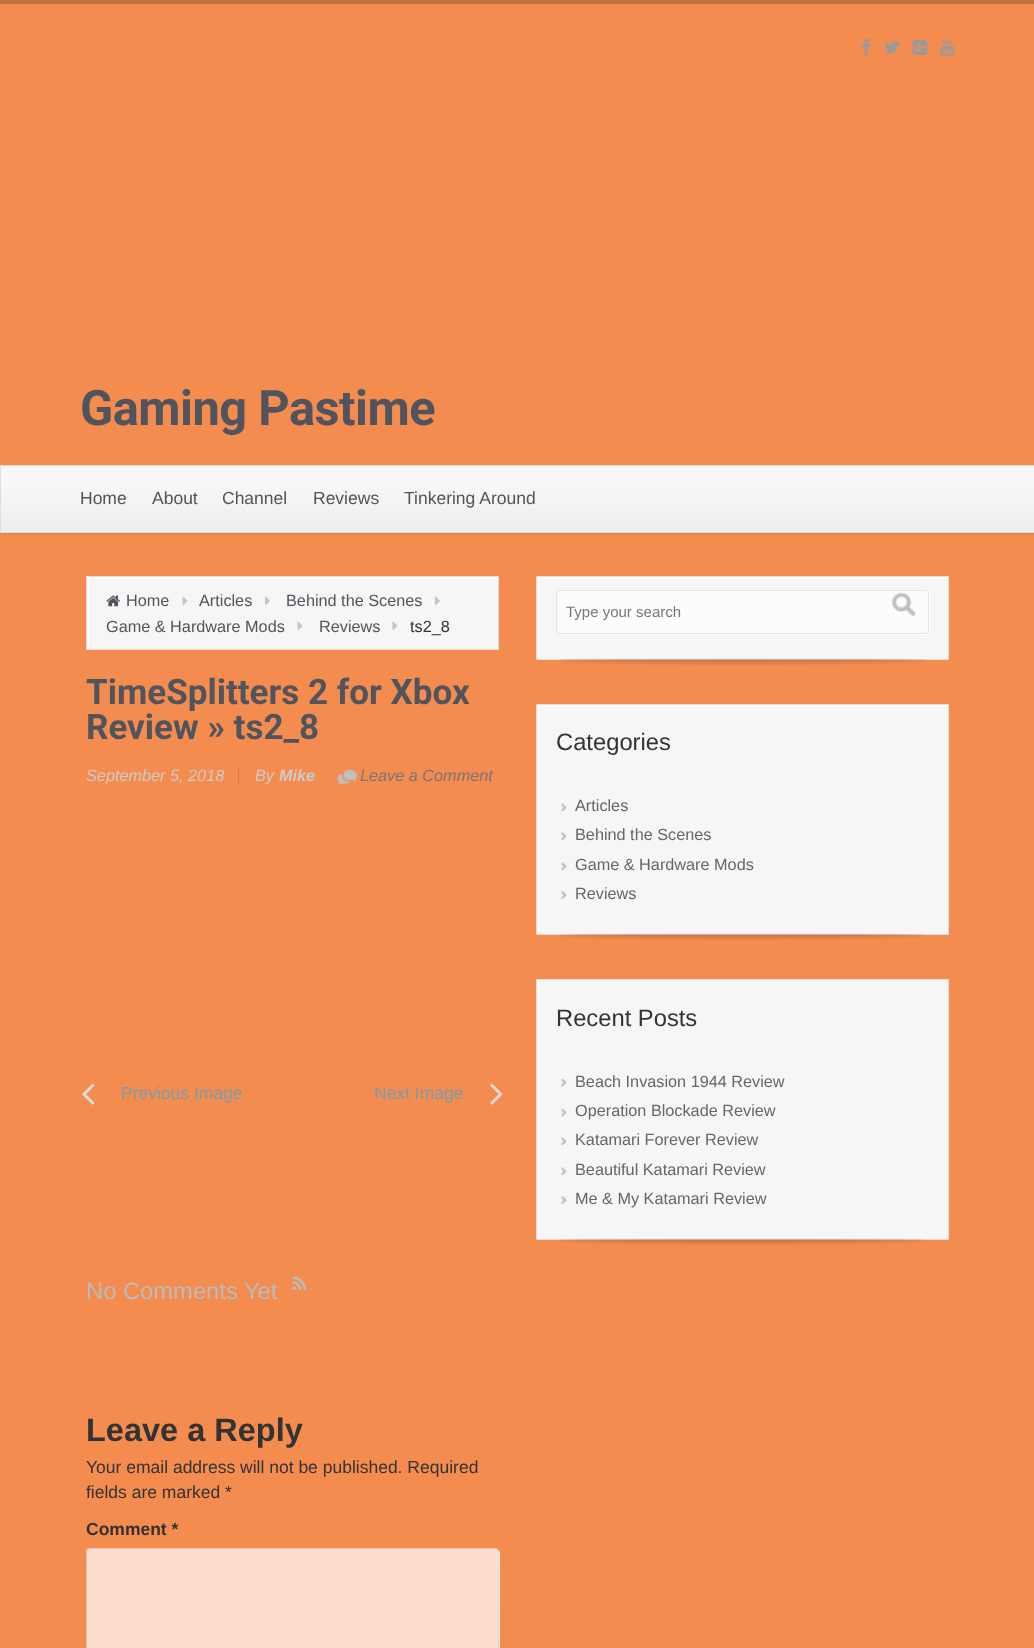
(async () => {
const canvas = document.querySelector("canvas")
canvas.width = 1034
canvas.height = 1648
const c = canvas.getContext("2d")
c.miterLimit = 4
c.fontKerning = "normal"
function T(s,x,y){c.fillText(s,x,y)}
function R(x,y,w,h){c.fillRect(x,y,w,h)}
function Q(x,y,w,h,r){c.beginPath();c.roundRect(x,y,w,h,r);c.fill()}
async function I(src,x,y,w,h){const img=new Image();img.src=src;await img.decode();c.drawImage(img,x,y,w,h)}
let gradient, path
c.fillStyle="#f48c50"
R(0,0,1034,1648)
c.fillStyle="#c37040"
R(0,0,1034,4)
await I("1.png",862,38,9,17)
await I("2.png",884,41,16,13)
await I("3.png",912,40,16,15)
await I("4.png",940,38,15,19)
c.letterSpacing="-0.5px"
c.font="bold 48.75px Roboto"
c.fillStyle="#51545c"
T("Gaming Pastime",80,425)
c.fillStyle="#0000001a"
c.filter="blur(1px)"
c.beginPath()
c.rect(0,466,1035,68)
c.fill()
c.filter="none"
gradient = c.createLinearGradient(1.2,466,1.2,531)
gradient.addColorStop(.2,"#f8f8f8")
gradient.addColorStop(1,"#eee")
c.fillStyle = gradient
R(1,467,1033,64)
gradient = c.createLinearGradient(1.2,531,1.2,596)
gradient.addColorStop(.2,"#f8f8f8")
gradient.addColorStop(1,"#eee")
c.fillStyle = gradient
R(0,531,1034,1)
c.fillStyle="#fafafa"
R(1,466,1033,1)
c.strokeStyle="#e0dddd"
c.strokeRect(.5,465.5,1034,67)
c.letterSpacing="0px"
c.font="17.5px Liberation Sans"
c.fillStyle="#51545c"
T("Home",80,504)
T("About",152,504)
T("Channel",222,504)
T("Reviews",313,504)
T("Tinkering Around",404,504)
c.fillStyle="#f6f6f6"
R(87,577,411,72)
c.save()
c.beginPath()
c.rect(88,578,410,71)
c.clip()
c.fillStyle="#fefefe"
path = new Path2D("M-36 454h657v318h-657zm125 125h410v71h-410z")
c.fill(path,"evenodd")
c.restore()
c.strokeRect(86.5,576.5,412,73)
await I("5.png",106,595,14,12)
c.font="16.25px Liberation Sans"
c.fillStyle="#51545c"
T("Home",126,606)
await I("6.png",182,596,6,9)
T("Articles",199,606)
await I("7.png",265,596,5,9)
T("Behind the Scenes",286,606)
await I("7.png",435,596,5,9)
T("Game & Hardware Mods",106,632)
await I("6.png",297,621,6,9)
T("Reviews",319,632)
await I("6.png",392,621,6,9)
c.fillStyle="#333"
T("ts2_8",410,632)
c.font="bold 35px Roboto"
c.fillStyle="#51545c"
T("TimeSplitters 2 for Xbox",86,704)
T("Review » ts2_8",86,739)
c.font="italic 16.25px Liberation Sans"
c.fillStyle="#ccc"
T("September 5, 2018",86,781)
c.fillStyle="#dc7e48"
R(238,766,1,19)
c.fillStyle="#ccc"
T("By",255,781)
c.font="italic bold 16.25px Liberation Sans"
T("Mike",279,781)
await I("8.png",337,770,21,15)
c.font="italic 16.25px Liberation Sans"
c.fillStyle="#777"
T("Leave a Comment",360,781)
await I("9.png",82,1083,13,22)
c.font="17.5px Liberation Sans"
c.fillStyle="#7a9cad"
T("Previous Image",121,1099)
T("Next Image",374,1099)
await I("10.png",490,1083,13,22)
c.font="23.75px Liberation Sans"
c.fillStyle="#bbb"
T("No Comments Yet",86,1299)
await I("11.png",292,1276,15,14)
c.font="bold 32.5px Liberation Sans"
c.fillStyle="#333"
T("Leave a Reply",86,1441)
c.font="17.5px Liberation Sans"
T("Your email address will not be published. Required",86,1473)
T("fields are marked *",86,1498)
c.font="bold 17.5px Liberation Sans"
T("Comment *",86,1535)
c.fillStyle="#fef4ee"
path = new Path2D("M88 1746c1 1 2 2 4 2h404c2 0 4-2 4-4v-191c0-1-1-2-2-3l1 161c0 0 5 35-4 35z")
c.fill(path)
c.fillStyle="#ffffffb3"
Q(86,1548,413,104,4)
c.beginPath()
c.roundRect(86.5,1548.5,412,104,3.5)
c.strokeStyle="#0000001a"
c.stroke()
c.fillStyle="#f6f6f6"
R(537,577,411,82)
c.save()
c.beginPath()
c.rect(538,578,410,81)
c.clip()
c.fillStyle="#fefefe"
path = new Path2D("M414 454h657v328h-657zm125 125h410v81h-410z")
c.fill(path,"evenodd")
c.restore()
c.strokeStyle="#e0dddd"
c.strokeRect(536.5,576.5,412,83)
c.fillStyle="#fefefe"
path = new Path2D("M559 634c1 0 2 1 3 1h364c2 0 4-2 4-4v-36c0-1-1-3-2-3l1 2v36c0 2-2 4-4 4z")
c.fill(path)
c.fillStyle="#ffffffb3"
c.beginPath()
c.roundRect(556.5,590.5,372,43,3.5)
c.fill()
c.strokeStyle="#e3e3e3"
c.stroke()
c.save()
c.beginPath()
c.rect(566,603,312,17)
c.clip()
c.font="15px Liberation Sans"
c.fillStyle="#777"
T("Type your search",566,617)
c.restore()
await I("12.png",891,592,25,25)
await I("13.png",558,658,368,7)
c.fillStyle="#f6f6f6"
R(537,705,411,229)
c.save()
c.beginPath()
c.rect(538,705,410,229)
c.clip()
c.fillStyle="#fefefe"
path = new Path2D("M414 581h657v477h-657zm125 125h410v229h-410z")
c.fill(path,"evenodd")
c.restore()
c.strokeStyle="#e0dddd"
c.strokeRect(536.5,704.5,412,230)
c.font="23.75px Liberation Sans"
c.fillStyle="#333"
T("Categories",556,750)
await I("14.png",561,803,6,9)
c.font="16.25px Liberation Sans"
c.fillStyle="#666"
T("Articles",575,811)
await I("15.png",561,832,6,8)
T("Behind the Scenes",575,840)
await I("15.png",561,862,6,8)
T("Game & Hardware Mods",575,870)
await I("16.png",561,891,6,8)
T("Reviews",575,899)
await I("13.png",558,933,368,7)
c.fillStyle="#f6f6f6"
R(537,980,411,259)
c.save()
c.beginPath()
c.rect(538,980,410,259)
c.clip()
c.fillStyle="#fefefe"
path = new Path2D("M414 856h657v506h-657zm125 125h410v259h-410z")
c.fill(path,"evenodd")
c.restore()
c.strokeRect(536.5,979.5,412,260)
c.font="23.75px Liberation Sans"
c.fillStyle="#333"
T("Recent Posts",556,1026)
await I("14.png",561,1078,6,9)
c.font="16.25px Liberation Sans"
c.fillStyle="#666"
T("Beach Invasion 1944 Review",575,1087)
await I("14.png",561,1108,6,9)
T("Operation Blockade Review",575,1116)
await I("15.png",561,1137,6,8)
T("Katamari Forever Review",575,1145)
await I("15.png",561,1167,6,8)
T("Beautiful Katamari Review",575,1175)
await I("16.png",561,1196,6,8)
T("Me & My Katamari Review",575,1204)
await I("13.png",558,1238,368,7)
})()
